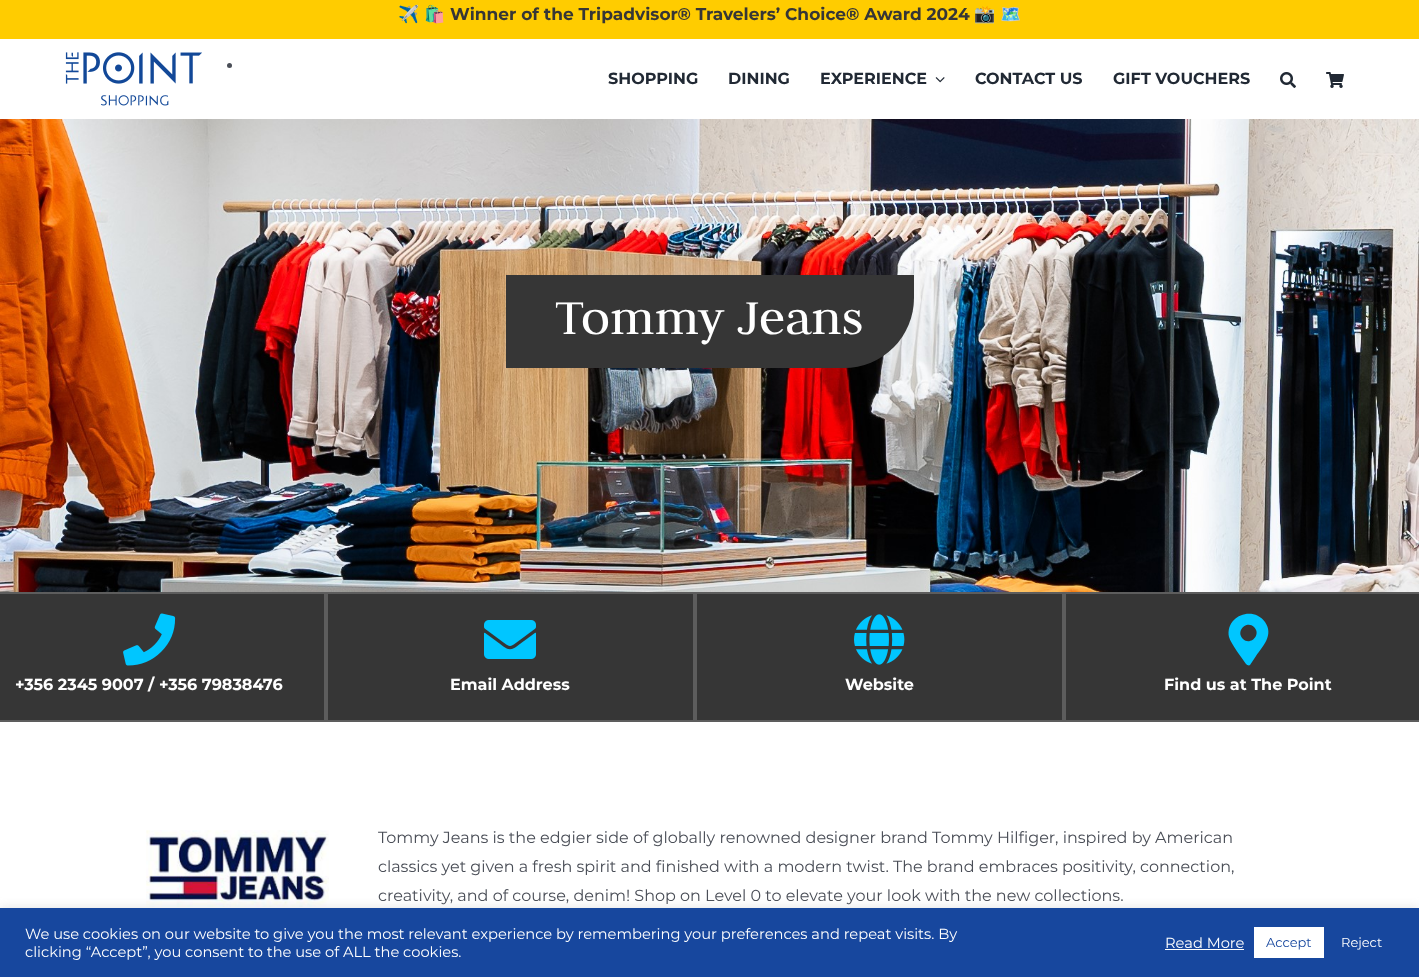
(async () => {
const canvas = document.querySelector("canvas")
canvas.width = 1419
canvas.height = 977
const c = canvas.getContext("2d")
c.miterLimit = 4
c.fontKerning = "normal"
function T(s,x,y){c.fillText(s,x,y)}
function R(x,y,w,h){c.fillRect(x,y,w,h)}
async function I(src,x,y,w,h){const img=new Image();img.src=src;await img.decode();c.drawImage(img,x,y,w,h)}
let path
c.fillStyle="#fff"
R(0,0,1419,977)
c.fillStyle="#fc0"
R(0,0,1419,39)
c.font="17px Noto Color Emoji"
c.fillStyle="#363636"
T("✈️",398,20)
T("🛍️",424,20)
c.font="bold 17px Montserrat"
T("Winner of the Tripadvisor® Travelers’ Choice® Award 2024",450,20)
c.font="17px Noto Color Emoji"
T("📸",974,20)
T("🗺️",1000,20)
await I("1.png",65,52,137,54)
c.fillStyle="#4a4e57"
c.beginPath()
c.arc(229.5,65.5,2.5,0,7)
c.fill()
c.font="bold 16px Montserrat"
c.fillStyle="#212934"
T("SHOPPING",608,84)
T("DINING",728,84)
T("EXPERIENCE",820,84)
await I("2.png",935,77,10,6)
T("CONTACT US",975,84)
T("GIFT VOUCHERS",1113,84)
await I("3.png",1280,72,16,16)
await I("4.png",1326,72,18,16)
await I("5.png",0,119,1419,473)
c.fillStyle="#363636"
c.beginPath()
c.roundRect(506,275,408,93,[0,0,70,0])
c.fill()
c.font="54px Judson"
c.fillStyle="#fff"
T("Tommy Jeans",555,334)
c.fillStyle="#363636"
R(0,594,1419,126)
c.strokeStyle="#5d5d5d"
c.lineWidth=2
c.strokeRect(-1,593,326,128)
await I("6.png",123,613,53,53)
c.font="bold 16px Montserrat"
c.fillStyle="#fff"
T("+356 2345 9007 / +356 79838476",15,690)
c.strokeRect(327,593,367,128)
await I("7.png",484,620,52,39)
T("Email Address",450,690)
c.strokeRect(696,593,367,128)
await I("8.png",854,614,51,51)
T("Website",845,690)
c.strokeRect(1065,593,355,128)
c.fillStyle="#00c6ff"
path = new Path2D("M1246 664c-4-6-15-20-17-27c-4-21 24-32 36-15c9 13-2 24-9 34l-6 9c-1 1-3 0-4-1zm-3-25c7 7 19-4 11-12c-7-7-19 4-11 12z")
c.fill(path)
c.fillStyle="#fff"
T("Find us at The Point",1164,690)
await I("9.png",146,830,183,77)
c.font="16px Montserrat"
c.fillStyle="#4a4e57"
T("Tommy Jeans is the edgier side of globally renowned designer brand Tommy Hilfiger, inspired by American",378,843)
T("classics yet given a fresh spirit and finished with a modern twist. The brand embraces positivity, connection,",378,872)
T("creativity, and of course, denim! Shop on Level 0 to elevate your look with the new collections.",378,901)
c.fillStyle="#acabab4d"
c.filter="blur(5px)"
c.beginPath()
c.rect(0,907,1419,69)
c.fill()
c.filter="none"
c.fillStyle="#17479e"
R(0,908,1419,69)
c.font="14.67px Montserrat"
c.fillStyle="#fff"
T("We use cookies on our website to give you the most relevant experience by remembering your preferences and repeat visits. By",25,939)
T("clicking “Accept”, you consent to the use of ALL the cookies.",25,957)
T("Read More",1165,948)
R(1165,949,79,1)
R(1254,927,70,31)
c.font="13px Montserrat"
c.fillStyle="#17479e"
T("Accept",1266,947)
c.fillStyle="#fff"
T("Reject",1341,947)
})()
